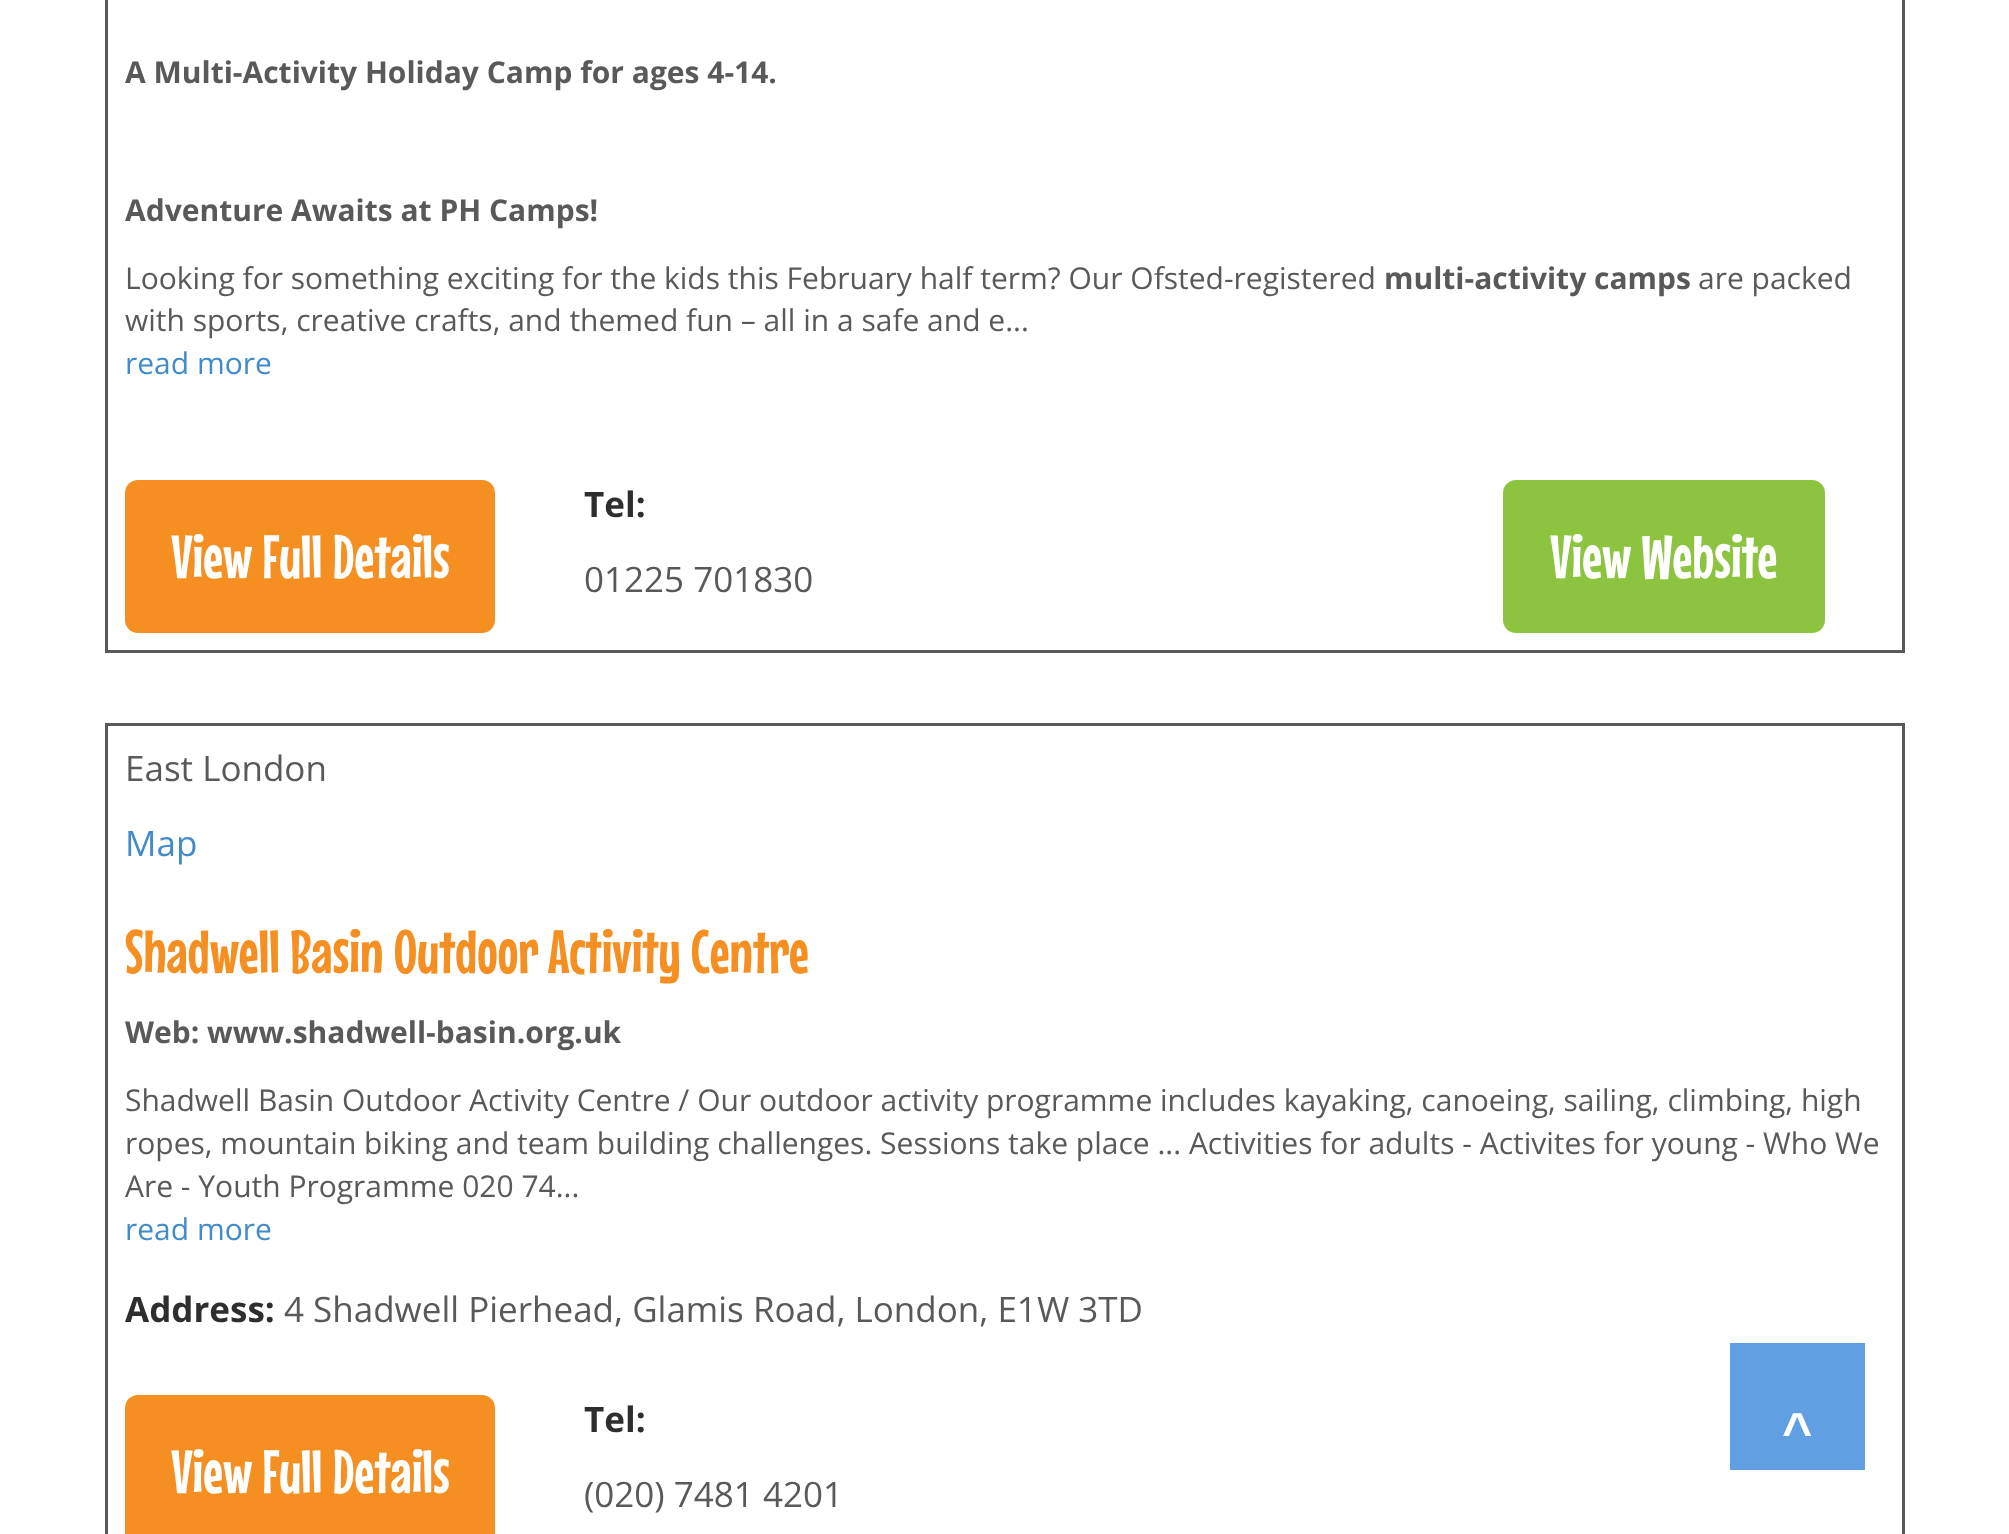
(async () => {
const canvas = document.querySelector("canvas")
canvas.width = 2009
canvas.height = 1534
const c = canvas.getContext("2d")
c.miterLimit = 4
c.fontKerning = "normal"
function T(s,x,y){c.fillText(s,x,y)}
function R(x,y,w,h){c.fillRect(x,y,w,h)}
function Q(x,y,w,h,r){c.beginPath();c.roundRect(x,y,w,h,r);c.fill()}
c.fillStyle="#fff"
R(0,0,2009,1534)
c.strokeStyle="#595959"
c.lineWidth=3
c.strokeRect(106.5,-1.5,1797,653)
c.font="bold 30px Open Sans"
c.fillStyle="#595959"
T("A Multi-Activity Holiday Camp for ages 4-14.",125,83)
T("Adventure Awaits at PH Camps!",125,221)
c.font="30px Open Sans"
T("Looking for something exciting for the kids this February half term? Our Ofsted-registered",125,289)
c.font="bold 30px Open Sans"
T("multi-activity camps",1384,289)
c.font="30px Open Sans"
T("are packed",1698,289)
T("with sports, creative crafts, and themed fun – all in a safe and e...",125,331)
c.fillStyle="#428bca"
T("read more",125,374)
c.fillStyle="#f58f21"
Q(125,480,370,153,13)
c.font="61.25px Mouse Memoirs"
c.fillStyle="#fff"
T("View Full Details",171,578)
c.font="bold 35px Open Sans"
c.fillStyle="#2e2e2e"
T("Tel:",584,517)
c.font="35px Open Sans"
c.fillStyle="#595959"
T("01225 701830",584,592)
c.fillStyle="#8cc43f"
Q(1503,480,322,153,13)
c.font="61.25px Mouse Memoirs"
c.fillStyle="#fff"
T("View Website",1550,578)
c.strokeRect(106.5,724.5,1797,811)
c.font="35px Open Sans"
c.fillStyle="#595959"
T("East London",125,781)
c.fillStyle="#428bca"
T("Map",125,856)
c.font="61.25px Mouse Memoirs"
c.fillStyle="#f58f21"
T("Shadwell Basin Outdoor Activity Centre",125,973)
c.font="bold 30px Open Sans"
c.fillStyle="#595959"
T("Web: www.shadwell-basin.org.uk",125,1043)
c.font="30px Open Sans"
T("Shadwell Basin Outdoor Activity Centre / Our outdoor activity programme includes kayaking, canoeing, sailing, climbing, high",125,1111)
T("ropes, mountain biking and team building challenges. Sessions take place ... Activities for adults - Activites for young - Who We",125,1154)
T("Are - Youth Programme 020 74...",125,1197)
c.fillStyle="#428bca"
T("read more",125,1240)
c.font="bold 35px Open Sans"
c.fillStyle="#2e2e2e"
T("Address:",125,1322)
c.font="35px Open Sans"
c.fillStyle="#595959"
T("4 Shadwell Pierhead, Glamis Road, London, E1W 3TD",284,1322)
c.fillStyle="#f58f21"
Q(125,1395,370,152,13)
c.font="61.25px Mouse Memoirs"
c.fillStyle="#fff"
T("View Full Details",171,1493)
c.font="bold 35px Open Sans"
c.fillStyle="#2e2e2e"
T("Tel:",584,1432)
c.font="35px Open Sans"
c.fillStyle="#595959"
T("(020) 7481 4201",584,1507)
c.fillStyle="#609fe2"
R(1730,1343,135,127)
c.font="bold 52px Liberation Sans"
c.fillStyle="#fff"
T("^",1782,1449)
})()
